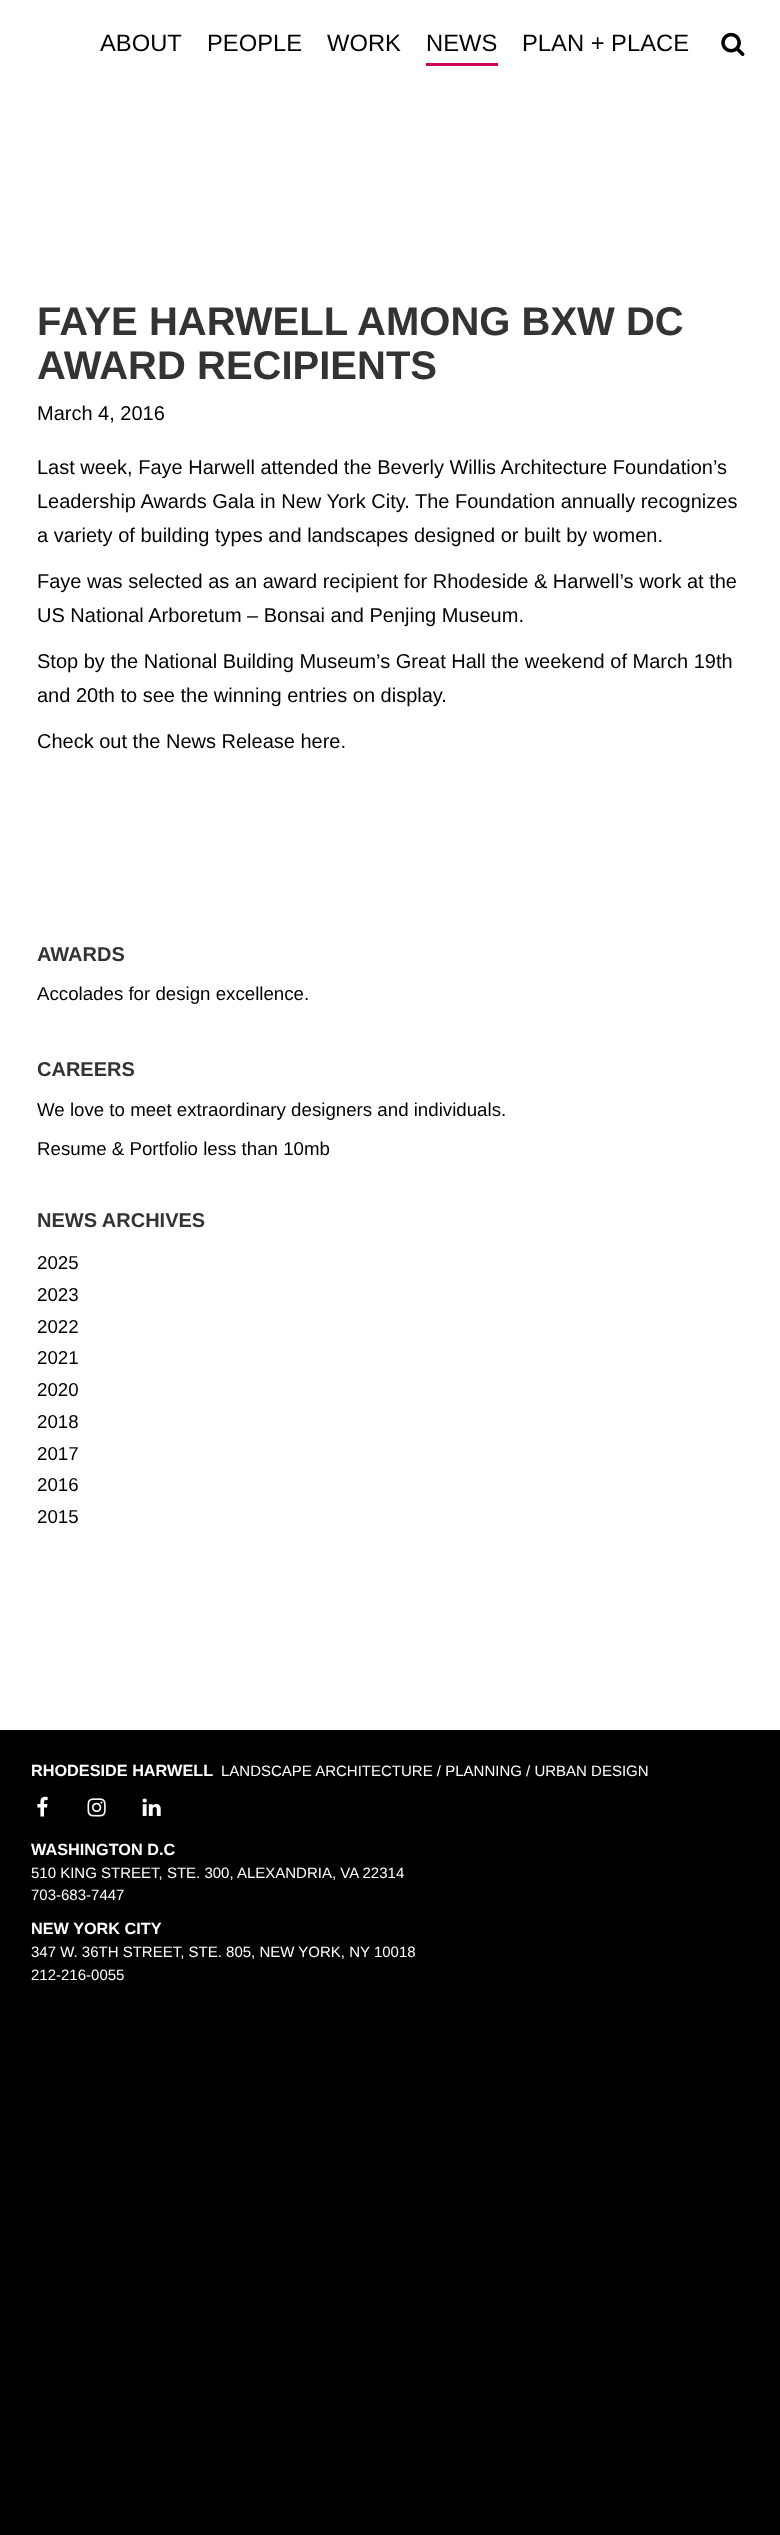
(async () => {
const canvas = document.querySelector("canvas")
canvas.width = 780
canvas.height = 2535
const c = canvas.getContext("2d")
c.miterLimit = 4
c.fontKerning = "normal"
function T(s,x,y){c.fillText(s,x,y)}
function R(x,y,w,h){c.fillRect(x,y,w,h)}
async function I(src,x,y,w,h){const img=new Image();img.src=src;await img.decode();c.drawImage(img,x,y,w,h)}
c.fillStyle="#000"
R(0,0,780,2535)
c.fillStyle="#fff"
R(0,0,780,1730)
c.font="23.75px Liberation Sans"
c.fillStyle="#000"
T("ABOUT",100,51)
T("PEOPLE",207,51)
T("WORK",327,51)
c.fillStyle="#ce0058"
R(426,63,72,3)
c.fillStyle="#000"
T("NEWS",426,51)
T("PLAN + PLACE",522,51)
await I("1.png",721,32,24,25)
c.font="bold 40px Liberation Sans"
c.fillStyle="#333"
T("FAYE HARWELL AMONG BXW DC",37,335)
T("AWARD RECIPIENTS",37,379)
c.font="20px Liberation Sans"
c.fillStyle="#000"
T("March 4, 2016",37,420)
T("Last week, Faye Harwell attended the Beverly Willis Architecture Foundation’s",37,474)
T("Leadership Awards Gala in New York City. The Foundation annually recognizes",37,508)
T("a variety of building types and landscapes designed or built by women.",37,542)
T("Faye was selected as an award recipient for Rhodeside & Harwell’s work at the",37,588)
T("US National Arboretum – Bonsai and Penjing Museum.",37,622)
T("Stop by the National Building Museum’s Great Hall the weekend of March 19th",37,668)
T("and 20th to see the winning entries on display.",37,702)
T("Check out the News Release here.",37,748)
c.font="bold 20px Liberation Sans"
c.fillStyle="#333"
T("AWARDS",37,961)
c.font="18.7px Liberation Sans"
c.fillStyle="#000"
T("Accolades for design excellence.",37,1000)
c.font="bold 20px Liberation Sans"
c.fillStyle="#333"
T("CAREERS",37,1076)
c.font="18.7px Liberation Sans"
c.fillStyle="#000"
T("We love to meet extraordinary designers and individuals.",37,1116)
T("Resume & Portfolio less than 10mb",37,1155)
c.font="bold 20px Liberation Sans"
c.fillStyle="#333"
T("NEWS ARCHIVES",37,1227)
c.font="18.7px Liberation Sans"
c.fillStyle="#000"
T("2025",37,1269)
T("2023",37,1301)
T("2022",37,1333)
T("2021",37,1364)
T("2020",37,1396)
T("2018",37,1428)
T("2017",37,1460)
T("2016",37,1491)
T("2015",37,1523)
c.font="bold 16.25px Liberation Sans"
c.fillStyle="#fff"
T("RHODESIDE HARWELL",31,1776)
c.font="15px Liberation Sans"
T("LANDSCAPE ARCHITECTURE / PLANNING / URBAN DESIGN",221,1776)
await I("2.png",37,1796,11,21)
await I("3.png",87,1798,19,19)
await I("4.png",142,1798,19,18)
c.font="bold 16.25px Liberation Sans"
T("WASHINGTON D.C",31,1855)
c.font="15px Liberation Sans"
T("510 KING STREET, STE. 300, ALEXANDRIA, VA 22314",31,1878)
T("703-683-7447",31,1900)
c.font="bold 16.25px Liberation Sans"
T("NEW YORK CITY",31,1934)
c.font="15px Liberation Sans"
T("347 W. 36TH STREET, STE. 805, NEW YORK, NY 10018",31,1957)
T("212-216-0055",31,1980)
})()
